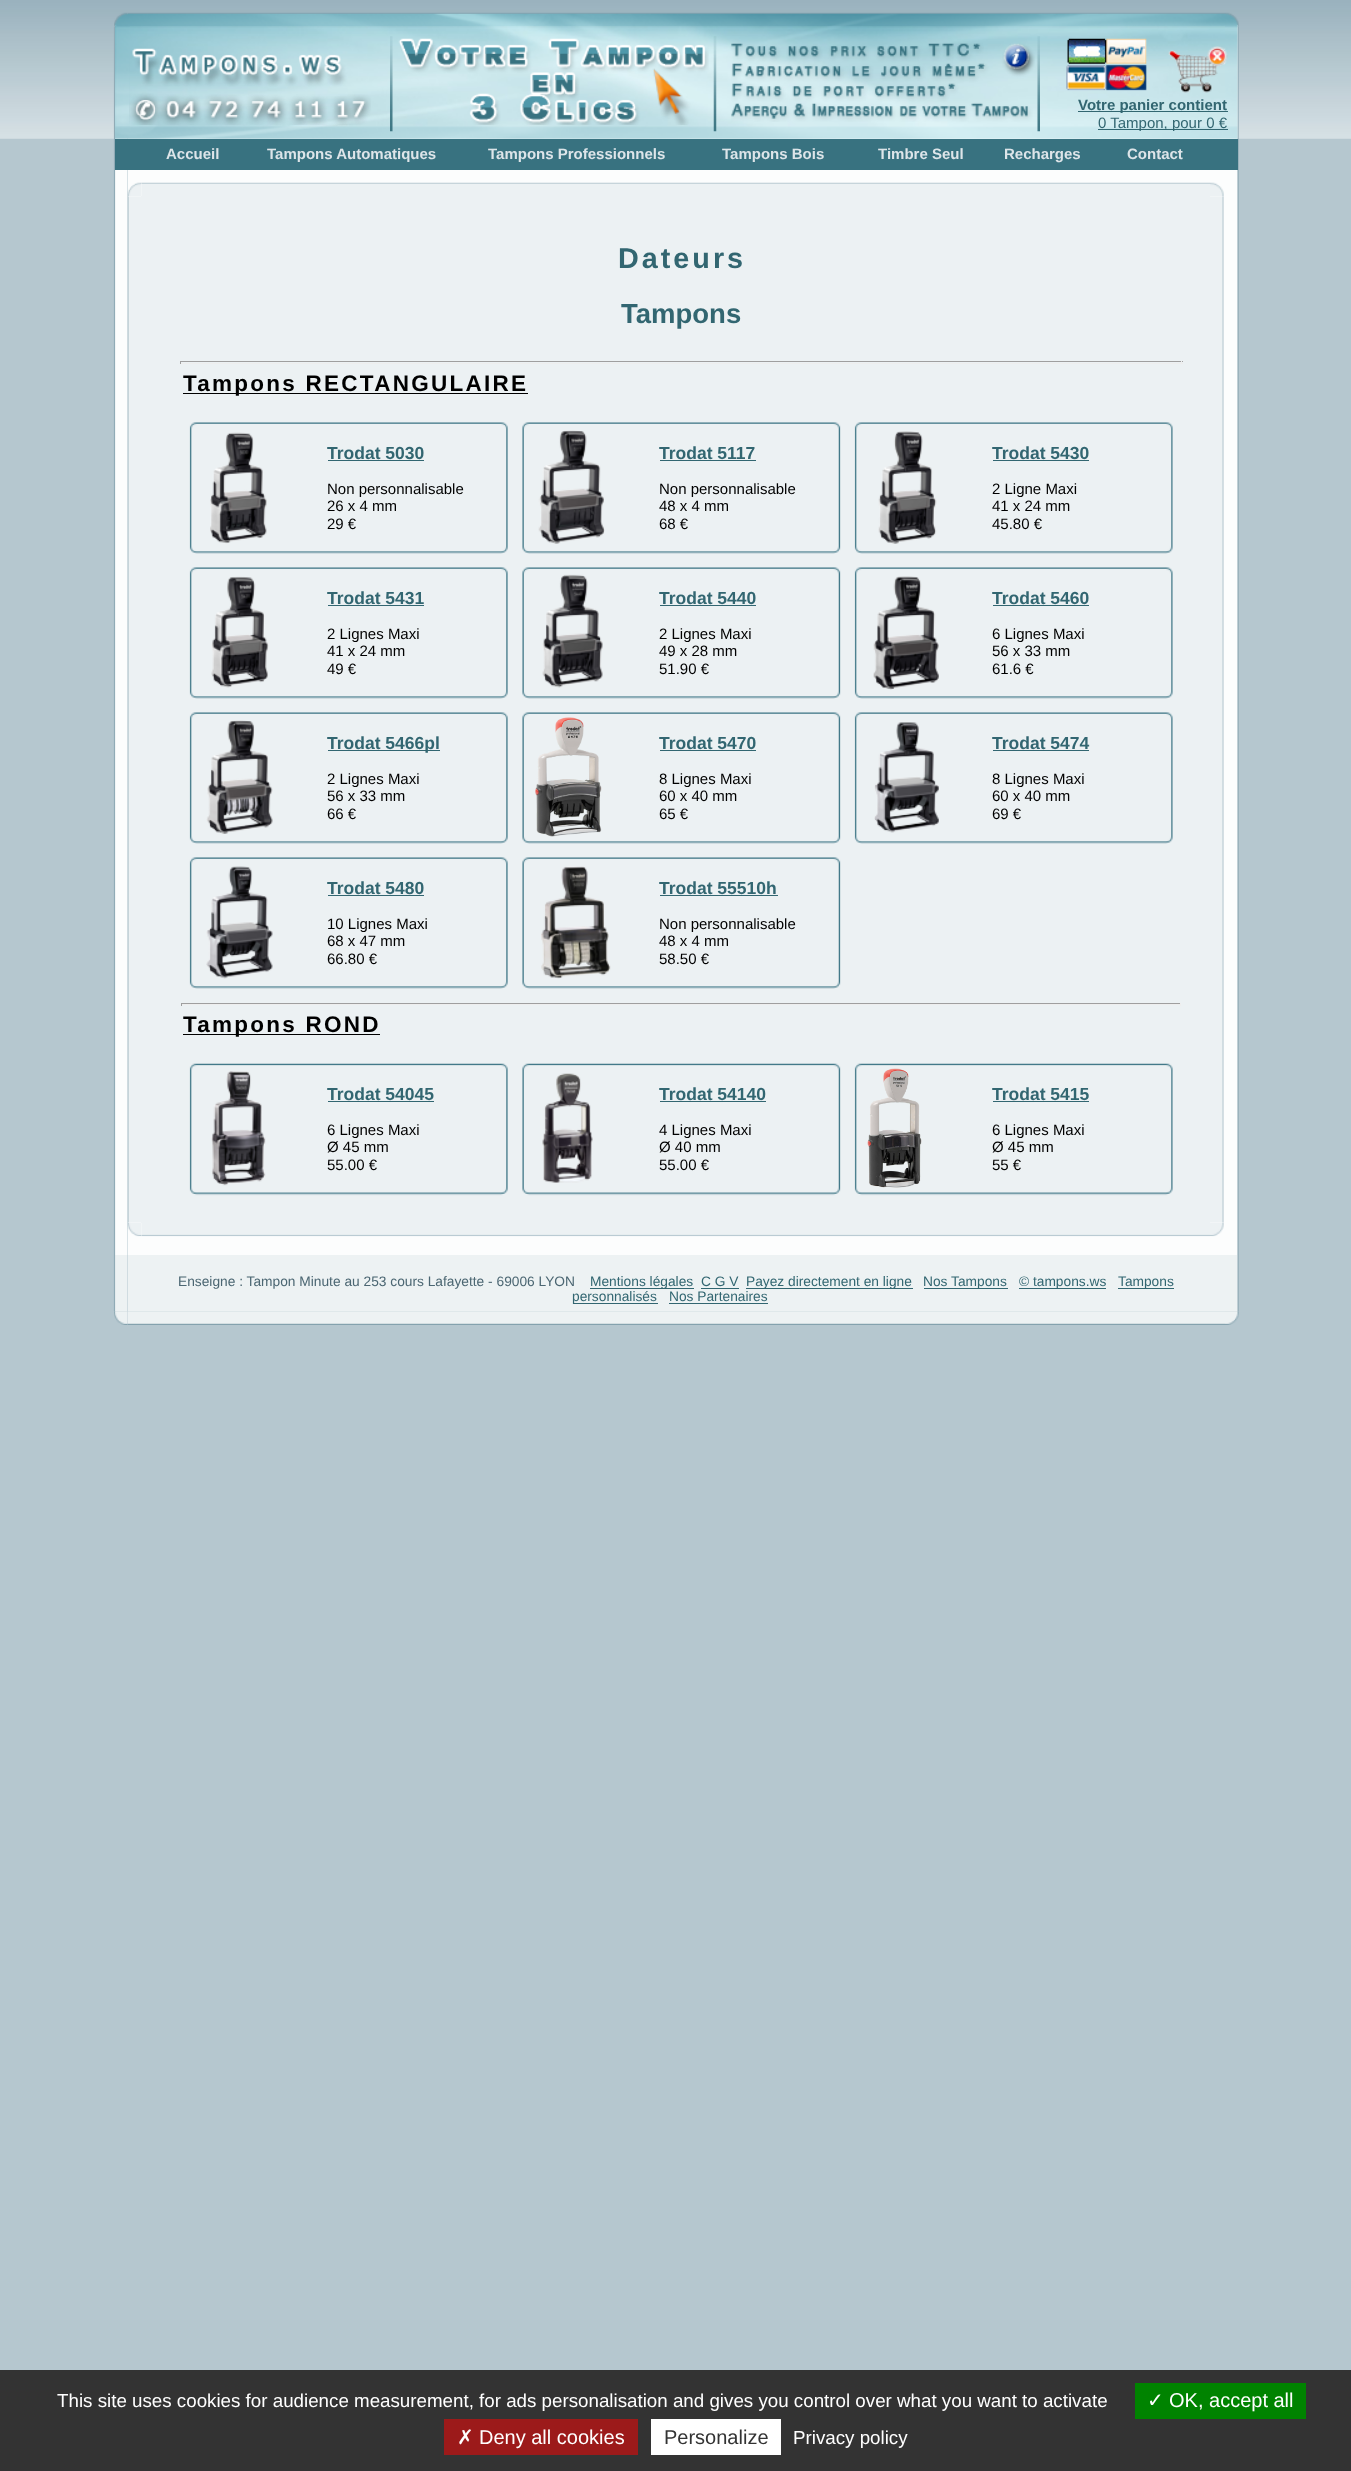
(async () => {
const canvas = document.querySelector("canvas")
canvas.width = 1351
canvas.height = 2471
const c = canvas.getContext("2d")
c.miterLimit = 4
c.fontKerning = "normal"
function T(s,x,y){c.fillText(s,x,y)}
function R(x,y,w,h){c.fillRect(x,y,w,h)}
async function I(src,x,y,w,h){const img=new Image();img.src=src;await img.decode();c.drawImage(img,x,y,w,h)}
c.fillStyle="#b5c7cf"
R(0,0,1351,2471)
await I("1.png",0,0,1351,139)
await I("2.png",114,12,14,15)
await I("3.png",127,12,1098,4)
await I("4.png",1225,12,14,15)
await I("5.png",113,26,15,1285)
await I("44.png",1225,26,14,1285)
c.fillStyle="#fcfdfd"
R(128,138,1097,1173)
await I("6.png",115,13,1123,126)
await I("7.png",130,26,1095,101)
await I("8.png",129,48,242,77)
await I("9.png",390,36,3,96)
await I("10.png",398,38,311,87)
await I("11.png",713,36,4,96)
await I("12.png",731,43,304,79)
await I("13.png",1037,36,3,96)
await I("14.png",1066,38,162,55)
c.fillStyle="#326671"
R(1078,111,150,1)
c.font="bold 15px Liberation Sans"
T("Votre panier contient",1078,110)
R(1098,129,130,1)
c.font="15px Liberation Sans"
T("0 Tampon, pour 0 €",1098,128)
c.fillStyle="#387280"
R(115,139,1123,31)
c.font="bold 15px Liberation Sans"
c.fillStyle="#dde5e9"
T("Accueil",166,159)
T("Tampons Automatiques",267,159)
T("Tampons Professionnels",488,159)
T("Tampons Bois",722,159)
T("Timbre Seul",878,159)
T("Recharges",1004,159)
T("Contact",1127,159)
await I("15.png",127,182,15,15)
await I("16.png",141,182,1069,14)
await I("17.png",1210,182,14,15)
await I("40.png",127,1222,15,15)
await I("18.png",127,196,14,1027)
c.fillStyle="#ecf1f3"
R(141,196,1069,1027)
await I("42.png",1210,1222,14,15)
await I("19.png",1210,196,14,1027)
c.letterSpacing="3px"
c.font="bold 28.75px Liberation Sans"
c.fillStyle="#326671"
T("Dateurs",618,268)
c.letterSpacing="0px"
c.font="bold 27.5px Liberation Sans"
T("Tampons",621,323)
c.fillStyle="#9f9f9f"
R(180,361,1003,1)
c.fillStyle="#eee"
R(1181,361,1,3)
R(180,363,1003,1)
c.fillStyle="#9f9f9f"
R(180,361,1,3)
c.fillStyle="#000"
R(183,393,345,1)
c.letterSpacing="2.25px"
c.font="bold 22.5px Liberation Sans"
T("Tampons RECTANGULAIRE",183,391)
await I("20.png",189,422,319,132)
await I("21.png",210,432,57,112)
c.letterSpacing="0px"
c.font="bold 17.5px Liberation Sans"
c.fillStyle="#326671"
T("Trodat 5030",327,459)
R(328,460,96,1)
c.font="15px Liberation Sans"
c.fillStyle="#000"
T("Non personnalisable",327,494)
T("26 x 4 mm",327,511)
T("29 €",327,529)
await I("22.png",522,422,319,132)
await I("23.png",538,430,67,114)
c.font="bold 17.5px Liberation Sans"
c.fillStyle="#326671"
T("Trodat 5117",659,459)
R(660,460,96,1)
c.font="15px Liberation Sans"
c.fillStyle="#000"
T("Non personnalisable",659,494)
T("48 x 4 mm",659,511)
T("68 €",659,529)
await I("24.png",854,422,319,132)
await I("25.png",878,431,59,113)
c.font="bold 17.5px Liberation Sans"
c.fillStyle="#326671"
T("Trodat 5430",992,459)
R(993,460,96,1)
c.font="15px Liberation Sans"
c.fillStyle="#000"
T("2 Ligne Maxi",992,494)
T("41 x 24 mm",992,511)
T("45.80 €",992,529)
await I("20.png",189,567,319,132)
await I("26.png",211,576,58,112)
c.font="bold 17.5px Liberation Sans"
c.fillStyle="#326671"
T("Trodat 5431",327,604)
R(328,605,96,1)
c.font="15px Liberation Sans"
c.fillStyle="#000"
T("2 Lignes Maxi",327,639)
T("41 x 24 mm",327,656)
T("49 €",327,674)
await I("22.png",522,567,319,132)
await I("27.png",542,574,61,114)
c.font="bold 17.5px Liberation Sans"
c.fillStyle="#326671"
T("Trodat 5440",659,604)
R(660,605,96,1)
c.font="15px Liberation Sans"
c.fillStyle="#000"
T("2 Lignes Maxi",659,639)
T("49 x 28 mm",659,656)
T("51.90 €",659,674)
await I("24.png",854,567,319,132)
await I("28.png",873,576,66,114)
c.font="bold 17.5px Liberation Sans"
c.fillStyle="#326671"
T("Trodat 5460",992,604)
R(993,605,96,1)
c.font="15px Liberation Sans"
c.fillStyle="#000"
T("6 Lignes Maxi",992,639)
T("56 x 33 mm",992,656)
T("61.6 €",992,674)
await I("20.png",189,712,319,132)
await I("29.png",206,720,67,114)
c.fillStyle="#326671"
R(328,750,112,1)
c.font="bold 17.5px Liberation Sans"
T("Trodat 5466pl",327,749)
c.font="15px Liberation Sans"
c.fillStyle="#000"
T("2 Lignes Maxi",327,784)
T("56 x 33 mm",327,801)
T("66 €",327,819)
await I("22.png",522,712,319,132)
await I("30.png",535,717,67,120)
c.font="bold 17.5px Liberation Sans"
c.fillStyle="#326671"
T("Trodat 5470",659,749)
R(660,750,96,1)
c.font="15px Liberation Sans"
c.fillStyle="#000"
T("8 Lignes Maxi",659,784)
T("60 x 40 mm",659,801)
T("65 €",659,819)
await I("24.png",854,712,319,132)
await I("31.png",874,722,65,111)
c.font="bold 17.5px Liberation Sans"
c.fillStyle="#326671"
T("Trodat 5474",992,749)
R(993,750,96,1)
c.font="15px Liberation Sans"
c.fillStyle="#000"
T("8 Lignes Maxi",992,784)
T("60 x 40 mm",992,801)
T("69 €",992,819)
await I("20.png",189,857,319,132)
await I("32.png",206,866,67,113)
c.font="bold 17.5px Liberation Sans"
c.fillStyle="#326671"
T("Trodat 5480",327,894)
R(328,895,96,1)
c.font="15px Liberation Sans"
c.fillStyle="#000"
T("10 Lignes Maxi",327,929)
T("68 x 47 mm",327,946)
T("66.80 €",327,964)
await I("22.png",522,857,319,132)
await I("33.png",541,866,70,113)
c.font="bold 17.5px Liberation Sans"
c.fillStyle="#326671"
T("Trodat 55510h",659,894)
R(660,895,118,1)
c.font="15px Liberation Sans"
c.fillStyle="#000"
T("Non personnalisable",659,929)
T("48 x 4 mm",659,946)
T("58.50 €",659,964)
c.fillStyle="#9f9f9f"
R(181,1003,1000,1)
c.fillStyle="#eee"
R(1180,1003,1,3)
R(181,1004,1000,1)
c.fillStyle="#9f9f9f"
R(181,1003,1,3)
c.fillStyle="#000"
R(183,1034,197,1)
c.letterSpacing="2.25px"
c.font="bold 22.5px Liberation Sans"
T("Tampons ROND",183,1032)
await I("34.png",189,1063,319,133)
await I("35.png",211,1071,55,115)
c.letterSpacing="0px"
c.font="bold 17.5px Liberation Sans"
c.fillStyle="#326671"
T("Trodat 54045",327,1100)
R(328,1101,106,1)
c.font="15px Liberation Sans"
c.fillStyle="#000"
T("6 Lignes Maxi",327,1135)
T("Ø 45 mm",327,1152)
T("55.00 €",327,1170)
await I("36.png",522,1063,319,133)
await I("37.png",542,1073,51,110)
c.font="bold 17.5px Liberation Sans"
c.fillStyle="#326671"
T("Trodat 54140",659,1100)
R(660,1101,106,1)
c.font="15px Liberation Sans"
c.fillStyle="#000"
T("4 Lignes Maxi",659,1135)
T("Ø 40 mm",659,1152)
T("55.00 €",659,1170)
await I("38.png",854,1063,319,133)
await I("39.png",867,1068,55,120)
c.font="bold 17.5px Liberation Sans"
c.fillStyle="#326671"
T("Trodat 5415",992,1100)
R(993,1101,96,1)
c.font="15px Liberation Sans"
c.fillStyle="#000"
T("6 Lignes Maxi",992,1135)
T("Ø 45 mm",992,1152)
T("55 €",992,1170)
await I("41.png",141,1223,1069,14)
await I("45.png",114,1311,14,14)
await I("46.png",127,1311,1098,14)
await I("47.png",1225,1311,14,14)
await I("43.png",115,1255,1122,69)
c.font="13.75px Liberation Sans"
c.fillStyle="#4b6672"
T("Enseigne : Tampon Minute au 253 cours Lafayette - 69006 LYON",178,1286)
c.fillStyle="#326671"
R(590,1288,104,1)
T("Mentions légales",590,1286)
T("C G V",701,1286)
R(701,1288,38,1)
R(746,1288,167,1)
T("Payez directement en ligne",746,1286)
R(924,1288,84,1)
T("Nos Tampons",923,1286)
R(1019,1288,87,1)
T("© tampons.ws",1019,1286)
R(1118,1288,56,1)
T("Tampons",1118,1286)
R(573,1303,85,1)
T("personnalisés",572,1301)
T("Nos Partenaires",669,1301)
R(669,1303,99,1)
c.fillStyle="#333"
R(0,2370,1351,101)
c.font="18.75px Liberation Sans"
c.fillStyle="#fff"
T("This site uses cookies for audience measurement, for ads personalisation and gives you control over what you want to activate",57,2407)
c.fillStyle="#008300"
R(1135,2383,171,36)
c.font="20px DejaVu Sans"
c.fillStyle="#fff"
T("✓",1147,2407)
c.font="20px Liberation Sans"
T("OK, accept all",1169,2407)
c.fillStyle="#9c1a1a"
R(444,2419,194,36)
c.font="20px DejaVu Sans"
c.fillStyle="#fff"
T("✗",457,2444)
c.font="20px Liberation Sans"
T("Deny all cookies",479,2444)
R(651,2419,130,36)
c.fillStyle="#333"
T("Personalize",664,2444)
c.font="18.75px Liberation Sans"
c.fillStyle="#fff"
T("Privacy policy",793,2444)
})()
